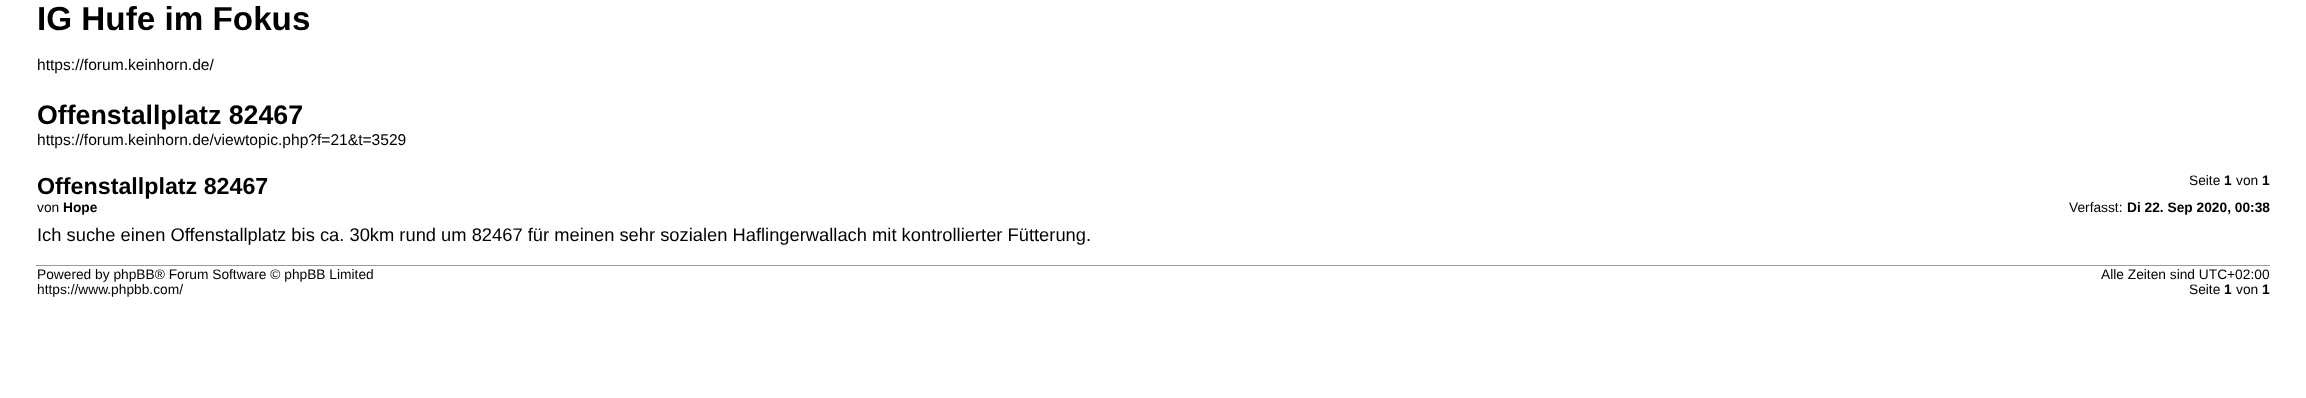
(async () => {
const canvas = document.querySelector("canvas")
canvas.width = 2306
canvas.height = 398
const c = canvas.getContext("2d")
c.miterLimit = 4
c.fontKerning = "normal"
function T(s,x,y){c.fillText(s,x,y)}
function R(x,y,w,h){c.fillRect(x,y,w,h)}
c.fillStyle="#fff"
R(0,0,2306,398)
c.font="bold 33.25px Liberation Sans"
c.fillStyle="#000"
T("IG Hufe im Fokus",37,30)
c.font="15.6px Liberation Sans"
T("https://forum.keinhorn.de/",37,70)
c.font="bold 26.75px Liberation Sans"
T("Offenstallplatz 82467",37,124)
c.font="15.6px Liberation Sans"
T("https://forum.keinhorn.de/viewtopic.php?f=21&t=3529",37,145)
c.font="13.75px Liberation Sans"
T("Seite",2189,185)
c.font="bold 13.75px Liberation Sans"
T("1",2224,185)
c.font="13.75px Liberation Sans"
T("von",2236,185)
c.font="bold 13.75px Liberation Sans"
T("1",2262,185)
c.font="bold 23.25px Liberation Sans"
T("Offenstallplatz 82467",37,194)
c.font="13.75px Liberation Sans"
T("von",37,212)
c.font="bold 13.75px Liberation Sans"
T("Hope",63,212)
c.font="13.75px Liberation Sans"
T("Verfasst:",2069,212)
c.font="bold 13.75px Liberation Sans"
T("Di 22. Sep 2020, 00:38",2127,212)
c.font="18.33px Liberation Sans"
T("Ich suche einen Offenstallplatz bis ca. 30km rund um 82467 für meinen sehr sozialen Haflingerwallach mit kontrollierter Fütterung.",37,241)
c.fillStyle="#999"
R(36,265,2234,1)
c.font="13.75px Liberation Sans"
c.fillStyle="#000"
T("Powered by phpBB® Forum Software © phpBB Limited",37,279)
T("https://www.phpbb.com/",37,294)
T("Alle Zeiten sind UTC+02:00",2101,279)
T("Seite",2189,294)
c.font="bold 13.75px Liberation Sans"
T("1",2224,294)
c.font="13.75px Liberation Sans"
T("von",2236,294)
c.font="bold 13.75px Liberation Sans"
T("1",2262,294)
})()
